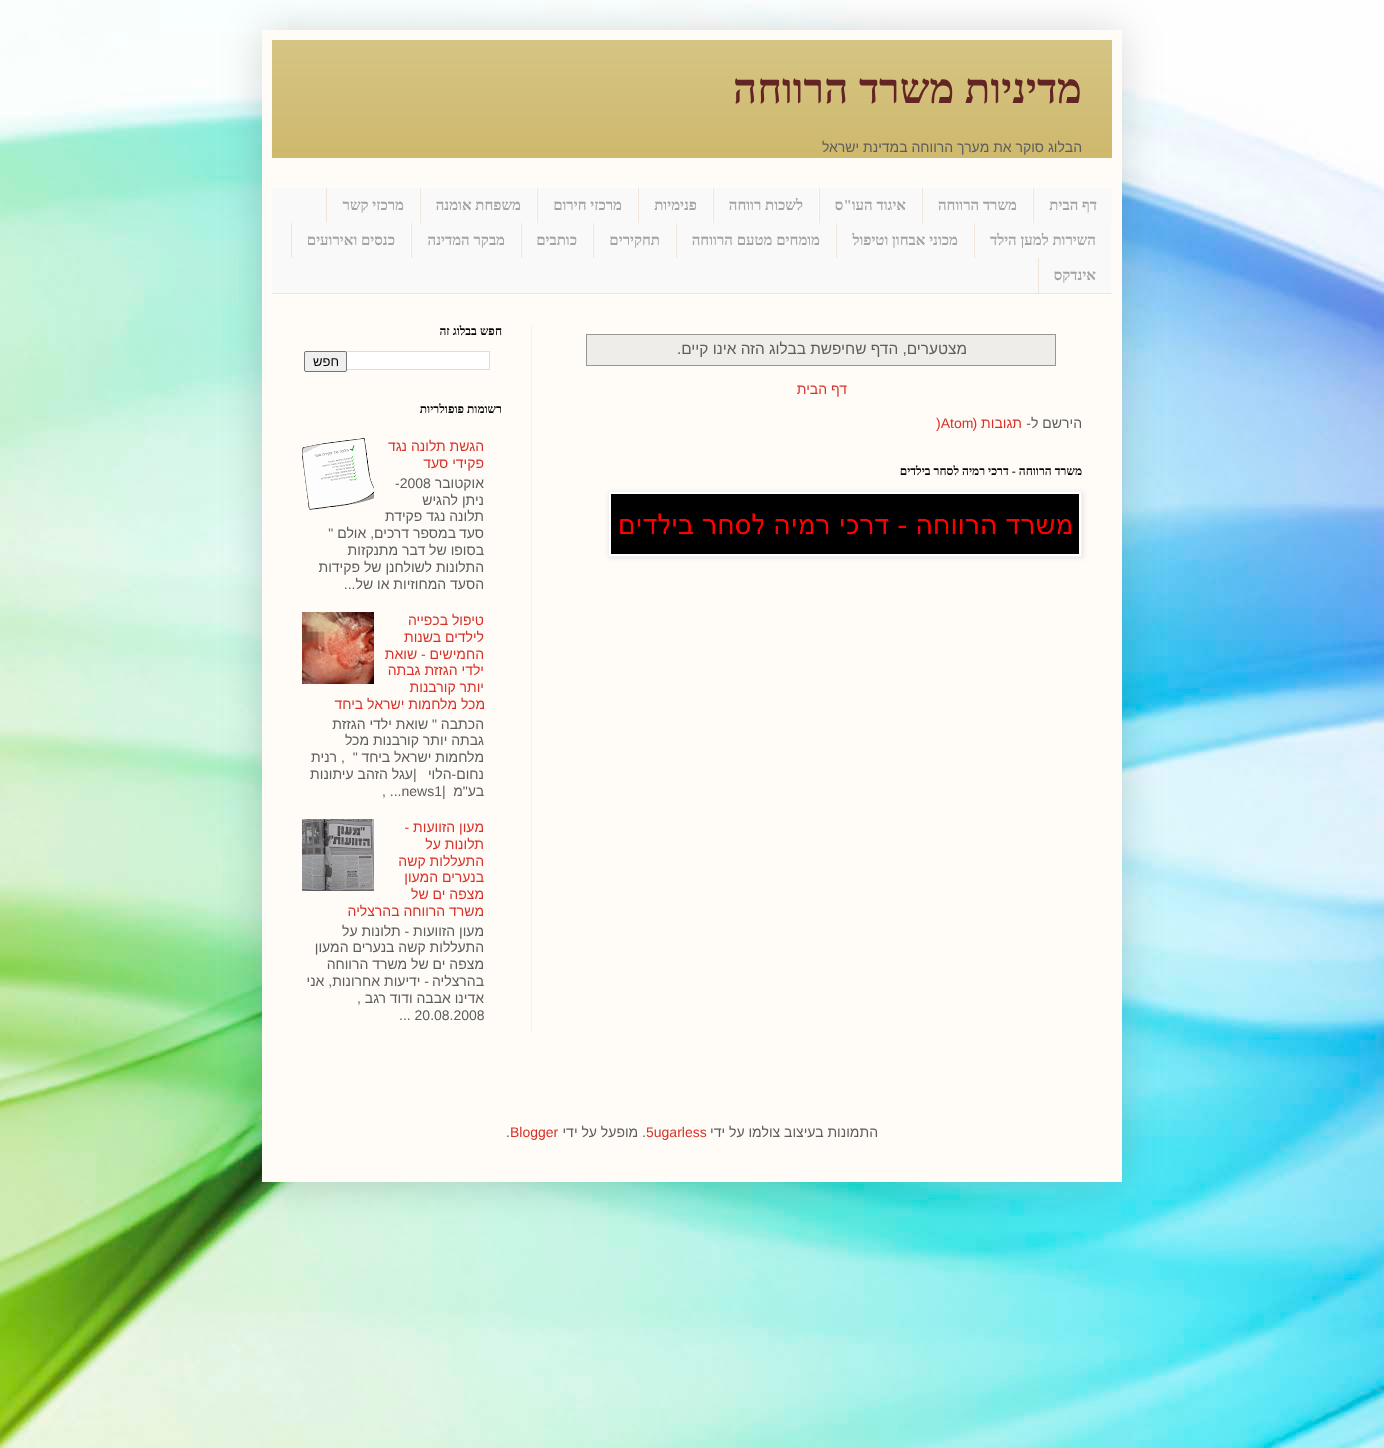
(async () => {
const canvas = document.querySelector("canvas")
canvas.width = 1384
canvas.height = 1448
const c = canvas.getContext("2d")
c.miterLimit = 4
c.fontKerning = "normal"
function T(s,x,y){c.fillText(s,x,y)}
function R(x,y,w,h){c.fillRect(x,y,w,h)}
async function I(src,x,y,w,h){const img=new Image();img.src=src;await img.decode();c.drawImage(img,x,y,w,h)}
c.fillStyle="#fff"
R(0,0,1384,1448)
await I("1.png",0,0,1384,1448)
c.fillStyle="#00000026"
c.filter="blur(20px)"
c.beginPath()
c.rect(262,30,860,1152)
c.fill()
c.filter="none"
c.fillStyle="#fffcf7"
R(262,30,860,1152)
c.fillStyle="#ccb666"
R(272,40,840,118)
await I("2.png",272,40,840,118)
c.direction="rtl"
c.font="bold 42px Liberation Serif"
c.fillStyle="#632523"
T("מדיניות משרד הרווחה",1082,103)
c.font="14px Liberation Sans"
c.fillStyle="#5d5d5d"
T("ה",1082,152)
T("בלוג סוקר את מערך הרווחה במדינת ישראל",1073,152)
c.fillStyle="#f9f9f9"
R(272,188,840,105)
c.fillStyle="#eee5dd"
R(272,293,840,1)
R(1033,188,1,35)
c.font="bold 15px Liberation Serif"
c.fillStyle="#a3a3a3"
T("דף הבית",1097,210)
c.fillStyle="#fffcf7"
R(1032,188,1,35)
c.fillStyle="#eee5dd"
R(922,188,1,35)
c.fillStyle="#a3a3a3"
T("משרד הרווחה",1017,210)
c.fillStyle="#fffcf7"
R(921,188,1,35)
c.fillStyle="#eee5dd"
R(819,188,1,35)
c.fillStyle="#a3a3a3"
T("איגוד העו\"ס",906,210)
c.fillStyle="#fffcf7"
R(818,188,1,35)
c.fillStyle="#eee5dd"
R(713,188,1,35)
c.fillStyle="#a3a3a3"
T("לשכות רווחה",803,210)
c.fillStyle="#fffcf7"
R(712,188,1,35)
c.fillStyle="#eee5dd"
R(638,188,1,35)
c.fillStyle="#a3a3a3"
T("פנימיות",697,210)
c.fillStyle="#fffcf7"
R(637,188,1,35)
c.fillStyle="#eee5dd"
R(537,188,1,35)
c.fillStyle="#a3a3a3"
T("מרכזי חירום",622,210)
c.fillStyle="#fffcf7"
R(536,188,1,35)
c.fillStyle="#eee5dd"
R(420,188,1,35)
c.fillStyle="#a3a3a3"
T("משפחת אומנה",521,210)
c.fillStyle="#fffcf7"
R(419,188,1,35)
c.fillStyle="#eee5dd"
R(326,188,1,35)
c.fillStyle="#a3a3a3"
T("מרכזי קשר",404,210)
c.fillStyle="#fffcf7"
R(1111,223,1,70)
c.fillStyle="#eee5dd"
R(974,223,1,35)
c.fillStyle="#a3a3a3"
T("השירות למען הילד",1096,245)
c.fillStyle="#fffcf7"
R(973,223,1,35)
c.fillStyle="#eee5dd"
R(836,223,1,35)
c.fillStyle="#a3a3a3"
T("מכוני אבחון וטיפול",958,245)
c.fillStyle="#fffcf7"
R(835,223,1,35)
c.fillStyle="#eee5dd"
R(676,223,1,35)
c.fillStyle="#a3a3a3"
T("מומחים מטעם הרווחה",820,245)
c.fillStyle="#fffcf7"
R(675,223,1,35)
c.fillStyle="#eee5dd"
R(593,223,1,35)
c.fillStyle="#a3a3a3"
T("תחקירים",660,245)
c.fillStyle="#fffcf7"
R(592,223,1,35)
c.fillStyle="#eee5dd"
R(521,223,1,35)
c.fillStyle="#a3a3a3"
T("כותבים",577,245)
c.fillStyle="#fffcf7"
R(520,223,1,35)
c.fillStyle="#eee5dd"
R(411,223,1,35)
c.fillStyle="#a3a3a3"
T("מבקר המדינה",505,245)
c.fillStyle="#fffcf7"
R(410,223,1,35)
c.fillStyle="#eee5dd"
R(291,223,1,35)
c.fillStyle="#a3a3a3"
T("כנסים ואירועים",395,245)
c.fillStyle="#eee5dd"
R(1038,258,1,35)
c.fillStyle="#a3a3a3"
T("אינדקס",1096,280)
c.fillStyle="#f2f2f2"
R(531,324,1,709)
c.strokeStyle="#999794"
c.strokeRect(586.5,334.5,469,31)
c.fillStyle="#efede9"
R(587,335,468,30)
c.font="15.4px Liberation Sans"
c.fillStyle="#5d5d5d"
T("מצטערים, הדף שחיפשת בבלוג הזה אינו קיים.",967,354)
c.font="14px Liberation Sans"
c.fillStyle="#d83129"
T("דף הבית",847,394)
c.fillStyle="#5d5d5d"
T("הירשם ל-",1082,428)
c.fillStyle="#d83129"
T("תגובות (",1022,428)
c.direction="ltr"
T(")Atom",936,428)
c.direction="rtl"
c.font="bold 12px Liberation Serif"
c.fillStyle="#000"
T("משרד הרווחה - דרכי רמיה לסחר בילדים",1082,475)
c.fillStyle="#0000001a"
c.filter="blur(2.5px)"
c.beginPath()
c.rect(609,492,474,66)
c.fill()
c.filter="none"
c.fillStyle="#fff"
c.beginPath()
c.rect(608.5,491.5,473,65)
c.fill()
c.strokeStyle="#f2f2f2"
c.stroke()
await I("3.png",611,494,468,60)
c.fillStyle="#000"
T("חפש בבלוג זה",502,335)
c.fillStyle="#fff"
R(346,352,143,17)
c.strokeStyle="#ddd"
c.strokeRect(334.5,351.5,155,18)
c.fillStyle="#efefef"
c.beginPath()
c.roundRect(304.5,351.5,42,20,1.5)
c.fill()
c.strokeStyle="#767676"
c.stroke()
c.font="13px Liberation Sans"
c.fillStyle="#000"
T("חפש",339,366)
c.font="bold 12px Liberation Serif"
T("רשומות פופולריות",502,413)
c.font="14px Liberation Sans"
c.fillStyle="#d83129"
T("הגשת תלונה נגד",484,451)
T("פקידי סעד",484,468)
await I("4.png",302,438,72,72)
c.fillStyle="#5d5d5d"
T("אוקטובר",484,488)
c.direction="ltr"
T("-2008",395,488)
c.direction="rtl"
T("ניתן להגיש",484,505)
T("תלונה נגד פקידת",484,521)
T("סעד",484,538)
T("במספר דרכים, אולם \"",456,538)
T("בסופו של דבר מתנקזות",484,555)
T("התלונות לשולחנן של פקידות",484,572)
T("הסעד המחוזיות או של...",484,589)
await I("5.png",302,612,72,72)
c.fillStyle="#d83129"
T("טיפול בכפייה",484,625)
T("לילדים בשנות",484,642)
T("החמישים - שואת",484,659)
T("ילדי הגזזת גבתה",484,675)
T("יותר קורבנות",484,692)
T("מכל מלחמות ישראל ביחד",485,709)
c.fillStyle="#5d5d5d"
T("הכתבה \" שואת ילדי הגזזת",484,729)
T("גבתה יותר",484,745)
T("קורבנות מכל",419,745)
T("מלחמות ישראל ביחד \"  , רנית",484,762)
T("נחום-הלוי",484,779)
c.direction="ltr"
T("|",413,779)
c.direction="rtl"
T("עגל הזהב עיתונות",413,779)
T("בע\"מ",484,796)
c.direction="ltr"
T(", ...news1|",382,796)
c.direction="rtl"
c.fillStyle="#d83129"
T("מעון הזוועות -",484,832)
T("תלונות על",484,849)
T("התעללות קשה",484,866)
T("בנערים המעון",484,882)
T("מצפה ים של",484,899)
T("משרד הרווחה בהרצליה",484,916)
await I("6.png",302,819,72,72)
c.fillStyle="#5d5d5d"
T("מעון הזוועות - תלונות על",484,936)
T("התעללות קשה בנערים המעון",484,952)
T("מצפה ים של משרד הרווחה",484,969)
T("בהרצליה",484,986)
T("- ידיעות אחרונות, אני",429,986)
T("אדינו אבבה ודוד רגב ,",484,1003)
c.direction="ltr"
T("... 20.08.2008",399,1020)
c.direction="rtl"
T("התמונות בעיצוב צולמו על ידי",878,1137)
c.direction="ltr"
c.fillStyle="#d83129"
T("5ugarless",646,1137)
c.direction="rtl"
c.fillStyle="#5d5d5d"
T(". מופעל על ידי",646,1137)
c.direction="ltr"
c.fillStyle="#d83129"
T("Blogger",510,1137)
c.fillStyle="#5d5d5d"
T(".",506,1137)
})()
